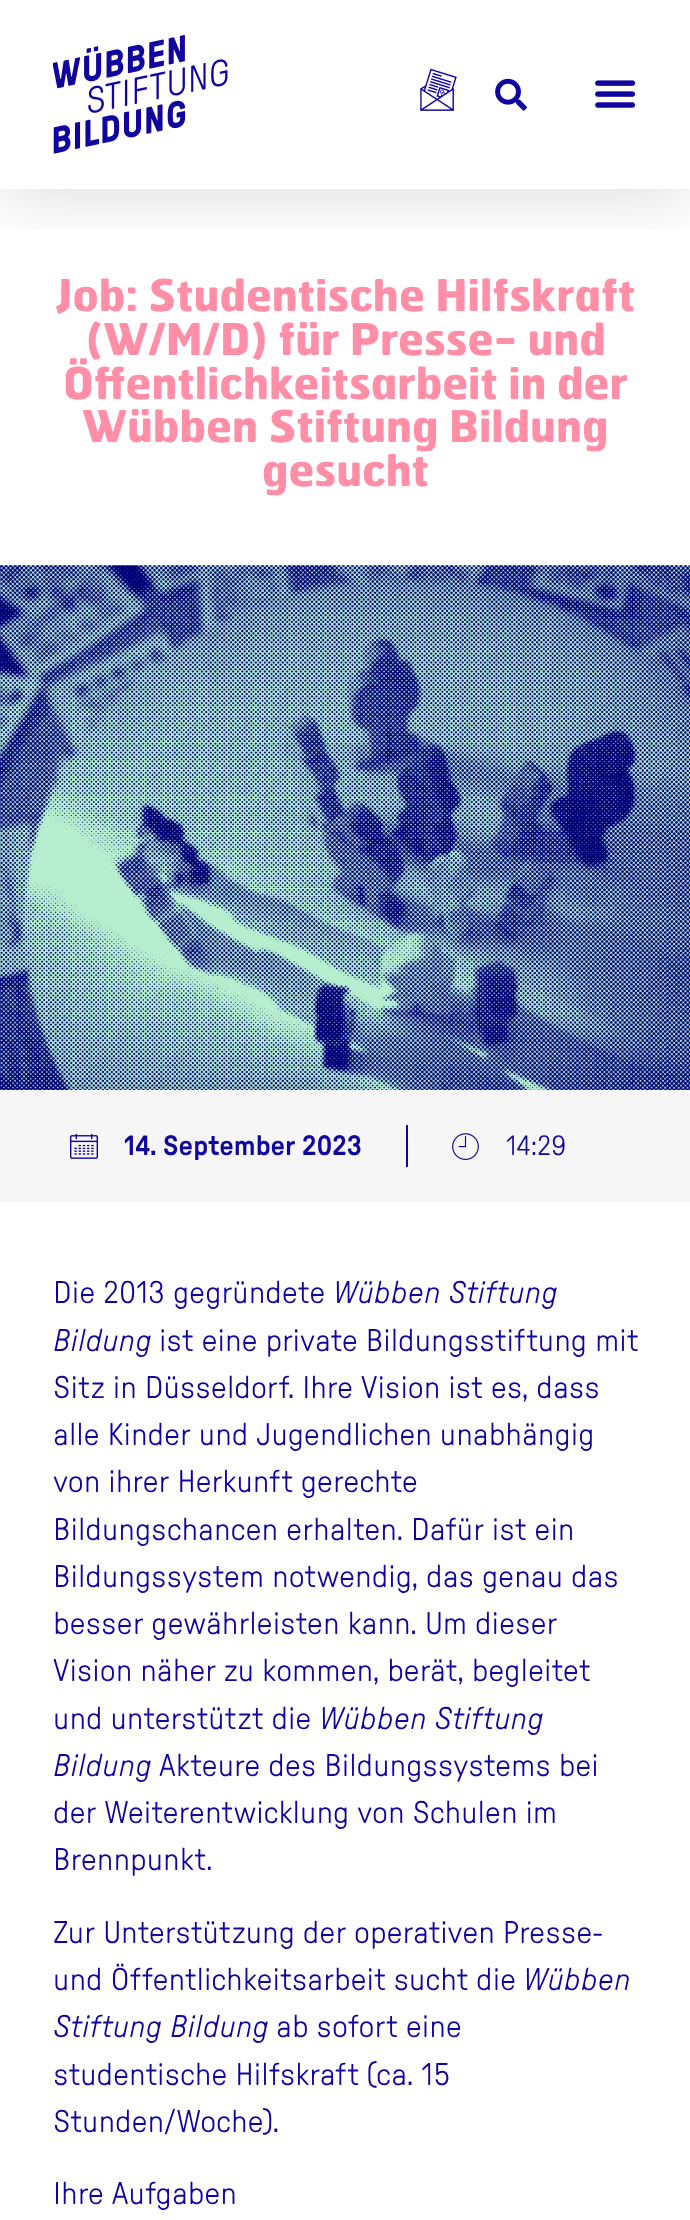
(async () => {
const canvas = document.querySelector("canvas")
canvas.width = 690
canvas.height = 2220
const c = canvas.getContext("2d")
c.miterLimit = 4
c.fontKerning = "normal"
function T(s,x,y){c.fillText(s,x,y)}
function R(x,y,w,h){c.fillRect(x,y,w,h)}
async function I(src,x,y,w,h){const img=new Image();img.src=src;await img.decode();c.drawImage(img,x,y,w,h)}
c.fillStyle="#fff"
R(0,0,690,2220)
c.save()
c.beginPath()
c.rect(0,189,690,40)
c.clip()
c.fillStyle="#00000029"
c.filter="blur(35px)"
c.beginPath()
c.rect(0,0,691,189)
c.fill()
c.filter="none"
c.restore()
await I("1.png",53,35,175,119)
await I("2.png",420,68,37,43)
await I("3.png",495,78,32,33)
await I("4.png",595,80,41,28)
c.font="bold 43.75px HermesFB"
c.fillStyle="#ff8ea6"
T("Job: Studentische Hilfskraft",55,311)
T("(W/M/D) für Presse- und",86,355)
T("Öffentlichkeitsarbeit in der",63,399)
T("Wübben Stiftung Bildung",82,442)
T("gesucht",262,486)
await I("5.png",0,565,690,525)
c.fillStyle="#f6f6f6"
R(0,1090,690,112)
await I("6.png",70,1133,28,26)
c.font="500 28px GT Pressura"
c.fillStyle="#10069f"
T("14. September 2023",124,1155)
R(406,1125,2,42)
await I("7.png",452,1133,27,27)
c.font="300 28px GT Pressura"
T("14:29",506,1155)
c.font="300 31.5px GT Pressura"
T("Die 2013 gegründete",53,1303)
c.font="italic 300 31.5px GT Pressura"
T("Wübben Stiftung",333,1303)
T("Bildung",53,1351)
c.font="300 31.5px GT Pressura"
T("ist eine private Bildungsstiftung mit",159,1351)
T("Sitz in Düsseldorf. Ihre Vision ist es, dass",53,1398)
T("alle Kinder und Jugendlichen unabhängig",53,1445)
T("von ihrer Herkunft gerechte",53,1492)
T("Bildungschancen erhalten. Dafür ist ein",53,1540)
T("Bildungssystem notwendig, das genau das",53,1587)
T("besser gewährleisten kann. Um dieser",53,1634)
T("Vision näher zu kommen, berät, begleitet",53,1681)
T("und unterstützt die",53,1729)
c.font="italic 300 31.5px GT Pressura"
T("Wübben Stiftung",319,1729)
T("Bildung",53,1776)
c.font="300 31.5px GT Pressura"
T("Akteure des Bildungssystems bei",159,1776)
T("der Weiterentwicklung von Schulen im",53,1823)
T("Brennpunkt.",53,1870)
T("Zur Unterstützung der operativen Presse-",53,1943)
T("und Öffentlichkeitsarbeit sucht die",53,1990)
c.font="italic 300 31.5px GT Pressura"
T("Wübben",523,1990)
T("Stiftung Bildung",53,2037)
c.font="300 31.5px GT Pressura"
T("ab sofort eine",276,2037)
T("studentische Hilfskraft (ca. 15",53,2085)
T("Stunden/Woche).",53,2132)
T("Ihre Aufgaben",53,2204)
})()
